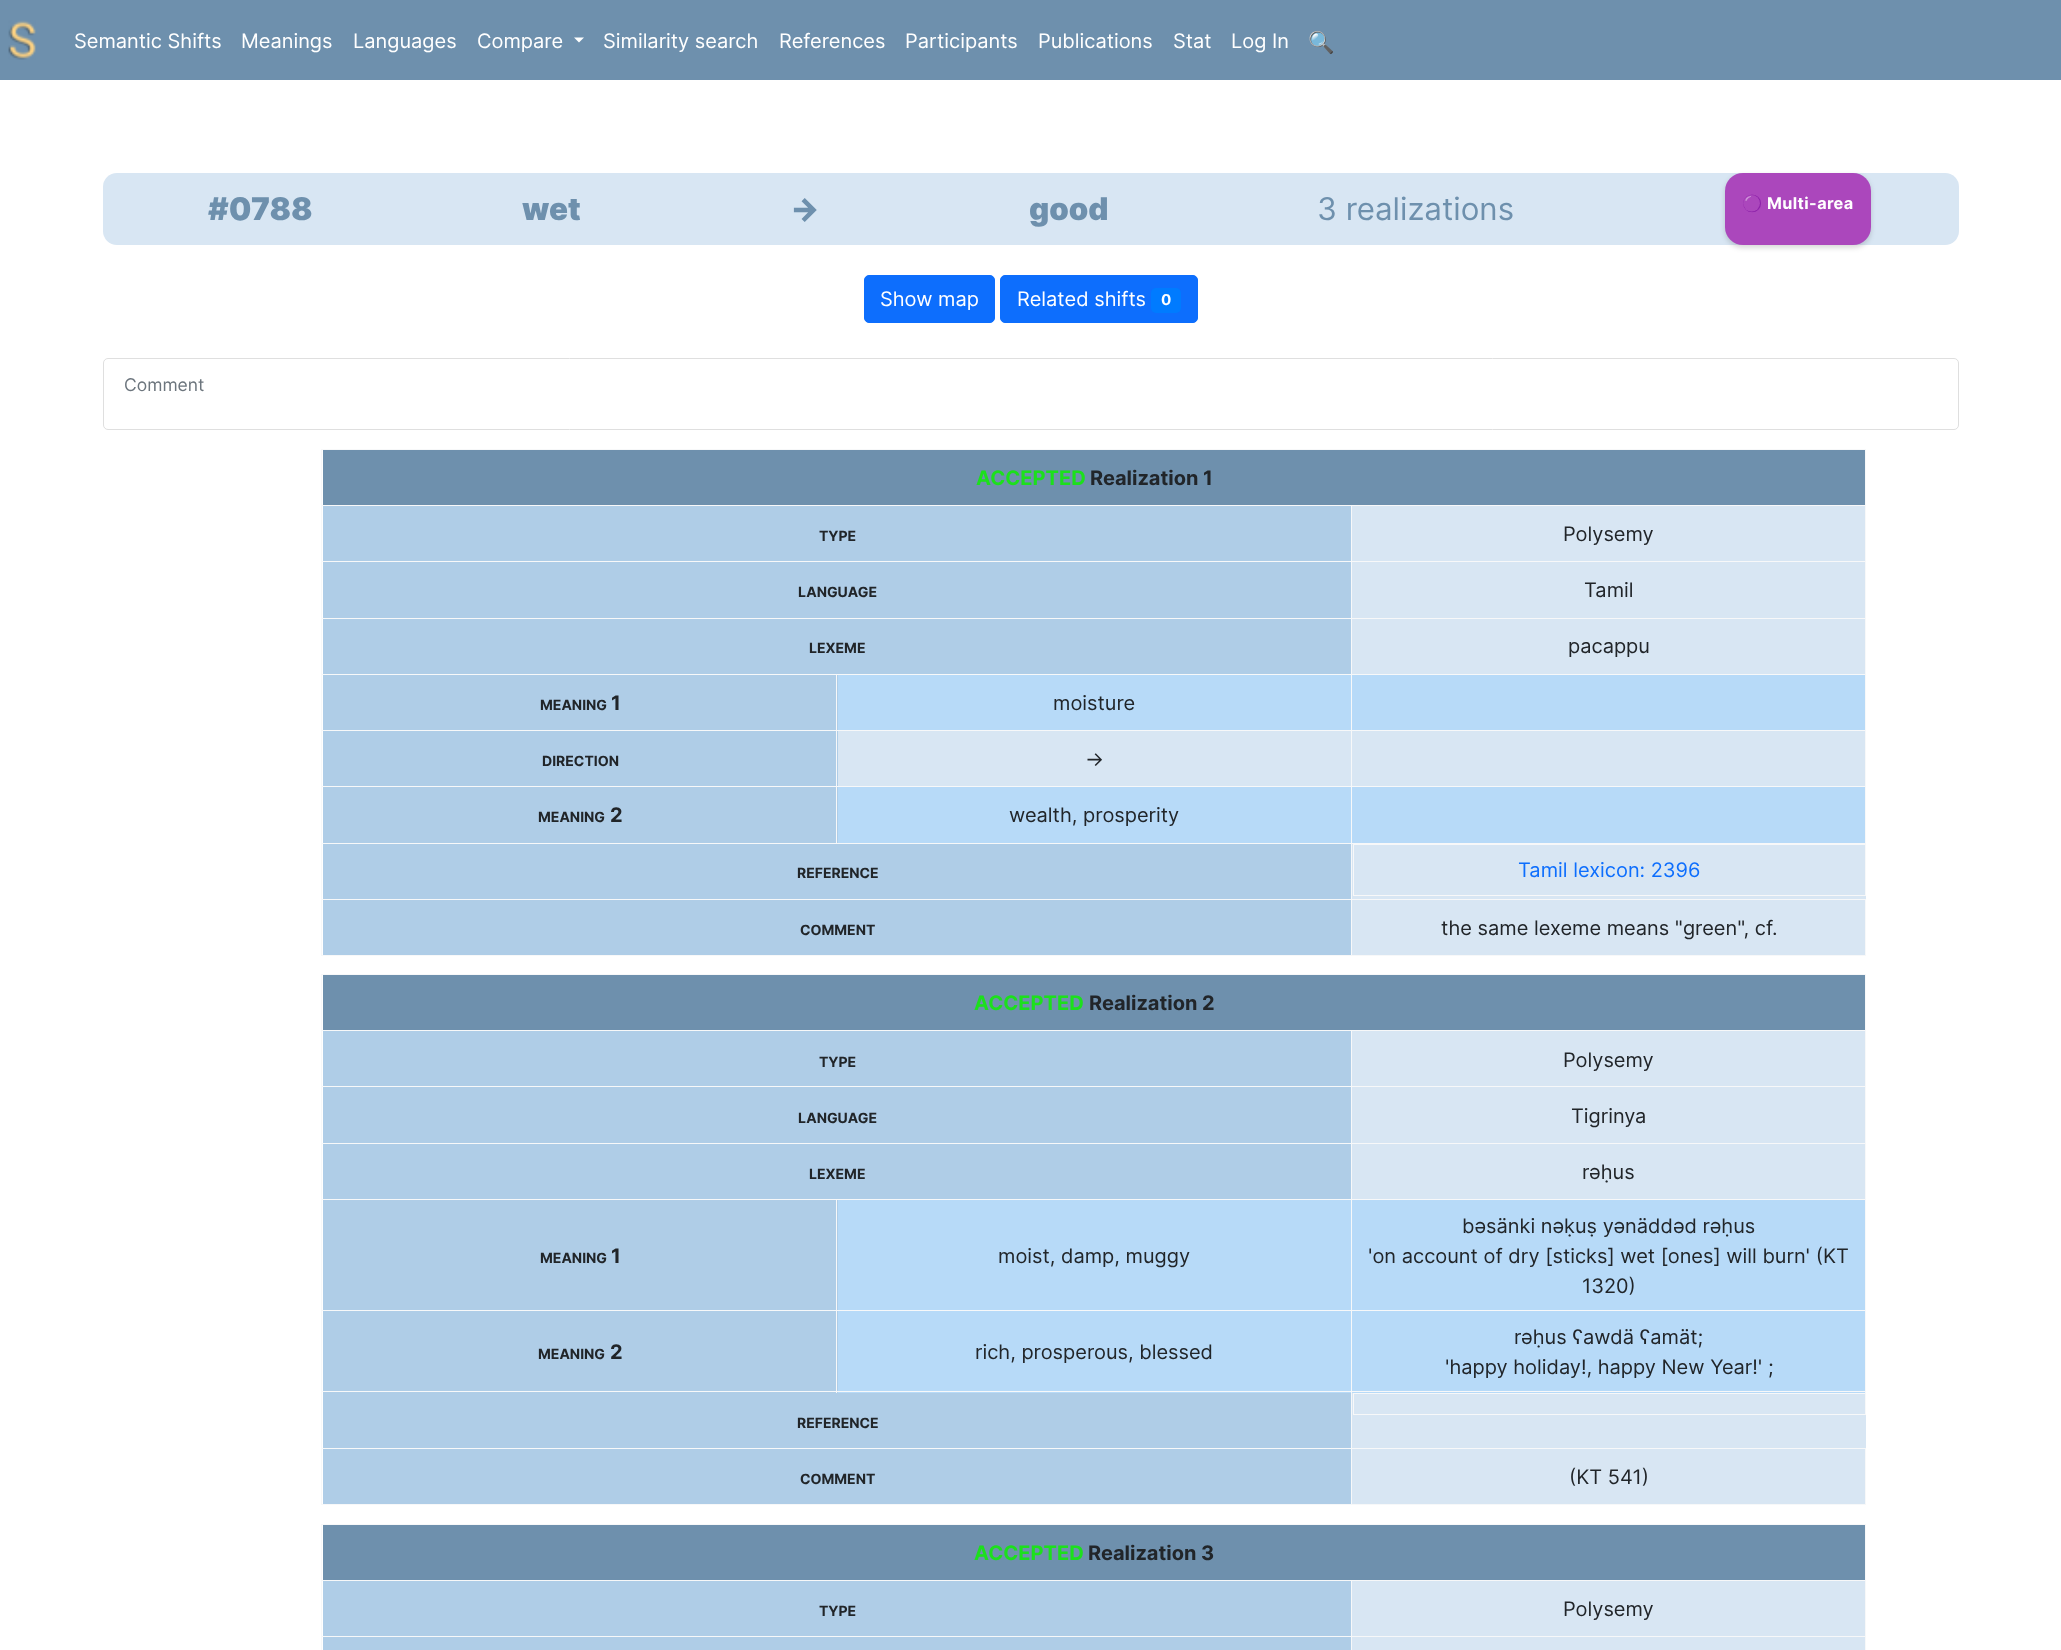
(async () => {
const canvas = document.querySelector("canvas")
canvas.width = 2061
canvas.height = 1650
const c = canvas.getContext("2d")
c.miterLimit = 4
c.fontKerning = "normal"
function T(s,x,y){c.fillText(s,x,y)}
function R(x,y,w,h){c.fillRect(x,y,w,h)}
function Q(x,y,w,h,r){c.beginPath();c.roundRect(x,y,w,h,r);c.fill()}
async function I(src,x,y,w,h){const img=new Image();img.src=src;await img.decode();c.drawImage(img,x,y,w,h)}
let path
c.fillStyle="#fff"
R(0,0,2061,1650)
c.fillStyle="#6e90ad"
R(0,0,2061,80)
await I("1.png",8,20,28,40)
c.font="20px Inter"
c.fillStyle="#fff"
T("Semantic Shifts",74,48)
T("Meanings",241,48)
T("Languages",353,48)
T("Compare",477,48)
path = new Path2D("M574 37.5h10l-5 5z")
c.fill(path)
T("Similarity search",603,48)
T("References",779,48)
T("Participants",905,48)
T("Publications",1038,48)
T("Stat",1173,48)
T("Log In",1231,48)
await I("2.png",1309,30,24,25)
c.fillStyle="#d8e6f3"
Q(103,173,1856,72,14)
c.font="900 31.25px Inter"
c.fillStyle="#6e90ad"
T("#0788",208,220)
T("wet",522,220)
T("→",790,220)
T("good",1029,220)
c.font="31.25px Inter"
T("3 realizations",1317,220)
c.fillStyle="#00000026"
c.filter="blur(2.5px)"
c.beginPath()
c.roundRect(1725,175,146,73,18)
c.fill()
c.filter="none"
c.fillStyle="#ab47bc"
Q(1725,173,146,72,18)
c.letterSpacing="0.4px"
c.font="bold 16.25px Noto Color Emoji"
c.fillStyle="#fff"
T("🟣",1742,209)
c.font="bold 16.25px Inter"
T("Multi-area",1767,209)
c.fillStyle="#0d6efd"
c.beginPath()
c.roundRect(864.5,275.5,130,47,4.5)
c.fill()
c.strokeStyle="#0d6efd"
c.stroke()
c.letterSpacing="0px"
c.font="20px Inter"
c.fillStyle="#fff"
T("Show map",880,306)
c.fillStyle="#0d6efd"
c.beginPath()
c.roundRect(1000.5,275.5,197,47,4.5)
c.fill()
c.stroke()
c.fillStyle="#fff"
T("Related shifts",1017,306)
c.fillStyle="#007bff"
Q(1151,288,30,25,5)
c.font="bold 15px Inter"
c.fillStyle="#fff"
T("0",1161,305)
c.beginPath()
c.roundRect(103.5,358.5,1855,71,4.5)
c.strokeStyle="#dfdfdf"
c.stroke()
c.font="17.5px Inter"
c.fillStyle="#6c757d"
T("Comment",124,391)
c.fillStyle="#6e90ad"
R(323,450,1542,55)
c.fillStyle="#f7f8f9"
R(321,449,1545,1)
R(1351,505,515,1)
R(1351,561,515,1)
R(1351,618,515,1)
R(1351,674,515,1)
R(1351,730,515,1)
R(1351,786,515,1)
R(1865,786,1,58)
R(1865,730,1,58)
R(1865,674,1,57)
R(1865,618,1,57)
R(1865,561,1,58)
R(1865,505,1,58)
R(1865,449,1,57)
R(321,843,1032,1)
R(1351,899,515,1)
R(1865,899,1,57)
R(1351,955,515,1)
R(1351,899,1,57)
R(321,899,1032,1)
R(1351,843,1,57)
R(1351,843,515,1)
R(1351,786,1,58)
R(836,786,517,1)
R(1351,730,1,58)
R(836,730,517,1)
R(1351,674,1,57)
R(836,674,517,1)
R(1351,618,1,57)
R(321,618,1032,1)
R(1351,561,1,58)
R(321,561,1032,1)
R(1351,505,1,58)
R(321,505,1032,1)
c.fillStyle="#afcde7"
R(323,675,515,55)
R(323,731,515,55)
R(323,787,515,56)
c.fillStyle="#f7f8f9"
R(836,786,1,58)
R(321,786,517,1)
R(836,730,1,58)
R(321,730,517,1)
R(836,674,1,57)
R(321,674,517,1)
R(321,955,1032,1)
R(321,899,1,57)
R(321,843,1,57)
R(321,786,1,58)
R(321,730,1,58)
R(321,674,1,57)
R(321,618,1,57)
R(321,561,1,58)
R(321,505,1,58)
R(321,449,1,57)
c.font="bold 20px Inter"
c.fillStyle="#1ce01c"
T("ACCEPTED",976,485)
c.fillStyle="#212529"
T("Realization 1",1090,485)
c.fillStyle="#afcde7"
R(323,506,1028,55)
c.font="bold 14px Inter"
c.fillStyle="#212529"
T("TYPE",819,541)
c.fillStyle="#d8e6f3"
R(1352,506,513,55)
c.font="20px Inter"
c.fillStyle="#212529"
T("Polysemy",1563,541)
c.fillStyle="#afcde7"
R(323,562,1028,56)
c.font="bold 14px Inter"
c.fillStyle="#212529"
T("LANGUAGE",798,597)
c.fillStyle="#d8e6f3"
R(1352,562,513,56)
c.font="20px Inter"
c.fillStyle="#212529"
T("Tamil",1584,597)
c.fillStyle="#afcde7"
R(323,619,1028,55)
c.font="bold 14px Inter"
c.fillStyle="#212529"
T("LEXEME",809,653)
c.fillStyle="#d8e6f3"
R(1352,619,513,55)
c.font="20px Inter"
c.fillStyle="#212529"
T("pacappu",1568,653)
c.font="bold 14px Inter"
T("MEANING",540,710)
c.font="bold 20px Inter"
T("1",611,710)
c.fillStyle="#b7daf8"
R(838,675,513,55)
c.font="20px Inter"
c.fillStyle="#212529"
T("moisture",1053,710)
c.fillStyle="#b7daf8"
R(1352,675,513,55)
c.font="bold 14px Inter"
c.fillStyle="#212529"
T("DIRECTION",542,766)
c.fillStyle="#d8e6f3"
R(838,731,513,55)
c.font="20px Inter"
c.fillStyle="#212529"
T("→",1085,766)
c.fillStyle="#d8e6f3"
R(1352,731,513,55)
c.font="bold 14px Inter"
c.fillStyle="#212529"
T("MEANING",538,822)
c.font="bold 20px Inter"
T("2",610,822)
c.fillStyle="#b7daf8"
R(838,787,513,56)
c.font="20px Inter"
c.fillStyle="#212529"
T("wealth, prosperity",1009,822)
c.fillStyle="#b7daf8"
R(1352,787,513,56)
c.fillStyle="#d8e6f3"
R(1352,844,514,55)
c.fillStyle="#afcde7"
R(323,844,1028,55)
c.font="bold 14px Inter"
c.fillStyle="#212529"
T("REFERENCE",797,878)
c.strokeStyle="#f7f8f9"
c.strokeRect(1353.5,844.5,512,51)
c.font="20px Inter"
c.fillStyle="#0d6efd"
T("Tamil lexicon: 2396",1518,877)
c.fillStyle="#afcde7"
R(323,900,1028,55)
c.font="bold 14px Inter"
c.fillStyle="#212529"
T("COMMENT",800,935)
c.fillStyle="#d8e6f3"
R(1352,900,513,55)
c.font="20px Inter"
c.fillStyle="#212529"
T("the same lexeme means \"green\", cf.",1441,935)
c.fillStyle="#6e90ad"
R(323,975,1542,55)
c.fillStyle="#f7f8f9"
R(321,974,1545,1)
R(1351,1030,515,1)
c.fillStyle="#d8e6f3"
R(1352,1031,513,112)
c.fillStyle="#f7f8f9"
R(1351,1086,515,1)
R(1351,1143,515,1)
R(1351,1199,515,1)
R(1351,1310,515,1)
R(1865,1310,1,83)
R(1865,1199,1,112)
R(1865,1143,1,57)
R(1865,1086,1,58)
R(1865,1030,1,58)
R(1865,974,1,57)
c.fillStyle="#afcde7"
R(323,1031,1028,112)
c.fillStyle="#b7daf8"
R(1352,1311,513,82)
c.fillStyle="#afcde7"
R(323,1311,515,82)
c.fillStyle="#b7daf8"
R(838,1311,513,82)
c.fillStyle="#f7f8f9"
R(321,1391,1032,1)
R(1351,1448,515,1)
R(1865,1448,1,57)
R(1351,1504,515,1)
R(1351,1448,1,57)
R(321,1448,1032,1)
R(1351,1391,1,58)
R(1351,1391,515,1)
R(1351,1310,1,83)
R(836,1310,517,1)
R(1351,1199,1,112)
R(836,1199,517,1)
R(1351,1143,1,57)
R(321,1143,1032,1)
R(1351,1086,1,58)
R(321,1086,1032,1)
R(1351,1030,1,58)
R(321,1030,1032,1)
c.fillStyle="#afcde7"
R(323,1200,515,110)
c.fillStyle="#f7f8f9"
R(836,1310,1,83)
R(321,1310,517,1)
R(836,1199,1,112)
R(321,1199,517,1)
R(321,1504,1032,1)
R(321,1448,1,57)
R(321,1391,1,58)
R(321,1310,1,83)
R(321,1199,1,112)
R(321,1143,1,57)
R(321,1086,1,58)
R(321,1030,1,58)
R(321,974,1,57)
c.font="bold 20px Inter"
c.fillStyle="#1ce01c"
T("ACCEPTED",974,1010)
c.fillStyle="#212529"
T("Realization 2",1089,1010)
c.font="bold 14px Inter"
T("TYPE",819,1067)
c.font="20px Inter"
T("Polysemy",1563,1067)
c.font="bold 14px Inter"
T("LANGUAGE",798,1123)
c.font="20px Inter"
T("Tigrinya",1571,1123)
c.fillStyle="#afcde7"
R(323,1144,1028,55)
c.font="bold 14px Inter"
c.fillStyle="#212529"
T("LEXEME",809,1179)
c.fillStyle="#d8e6f3"
R(1352,1144,513,55)
c.font="20px Inter"
c.fillStyle="#212529"
T("rəḥus",1582,1179)
c.font="bold 14px Inter"
T("MEANING",540,1263)
c.font="bold 20px Inter"
T("1",611,1263)
c.fillStyle="#b7daf8"
R(838,1200,513,110)
c.font="20px Inter"
c.fillStyle="#212529"
T("moist, damp, muggy",998,1263)
c.fillStyle="#b7daf8"
R(1352,1200,513,110)
c.fillStyle="#212529"
T("bəsänki nəḳuṣ yənäddəd rəḥus",1462,1233)
T("'on account of dry [sticks] wet [ones] will burn' (KT",1368,1263)
T("1320)",1582,1293)
c.font="bold 14px Inter"
T("MEANING",538,1359)
c.font="bold 20px Inter"
T("2",610,1359)
c.font="20px Inter"
T("rich, prosperous, blessed",975,1359)
T("rəḥus ʕawdä ʕamät;",1514,1344)
T("'happy holiday!, happy New Year!' ;",1445,1374)
c.fillStyle="#d8e6f3"
R(1352,1393,514,55)
c.strokeRect(1353.5,1393.5,512,21)
c.fillStyle="#afcde7"
R(323,1393,1028,55)
c.font="bold 14px Inter"
c.fillStyle="#212529"
T("REFERENCE",797,1428)
c.fillStyle="#afcde7"
R(323,1449,1028,55)
c.fillStyle="#212529"
T("COMMENT",800,1484)
c.fillStyle="#d8e6f3"
R(1352,1449,513,55)
c.font="20px Inter"
c.fillStyle="#212529"
T("(KT 541)",1569,1484)
c.fillStyle="#6e90ad"
R(323,1525,1542,55)
c.fillStyle="#f7f8f9"
R(321,1524,1545,1)
R(1351,1580,515,1)
R(1351,1636,515,1)
R(1865,1636,1,14)
R(1865,1580,1,58)
R(1865,1524,1,57)
R(1351,1636,1,14)
R(321,1636,1032,1)
R(1351,1580,1,58)
R(321,1580,1032,1)
R(321,1636,1,14)
R(321,1580,1,58)
R(321,1524,1,57)
c.font="bold 20px Inter"
c.fillStyle="#1ce01c"
T("ACCEPTED",974,1560)
c.fillStyle="#212529"
T("Realization 3",1088,1560)
c.fillStyle="#afcde7"
R(323,1581,1028,55)
c.font="bold 14px Inter"
c.fillStyle="#212529"
T("TYPE",819,1616)
c.fillStyle="#d8e6f3"
R(1352,1581,513,55)
c.font="20px Inter"
c.fillStyle="#212529"
T("Polysemy",1563,1616)
c.fillStyle="#afcde7"
R(323,1637,1028,13)
c.fillStyle="#d8e6f3"
R(1352,1637,513,13)
})()
